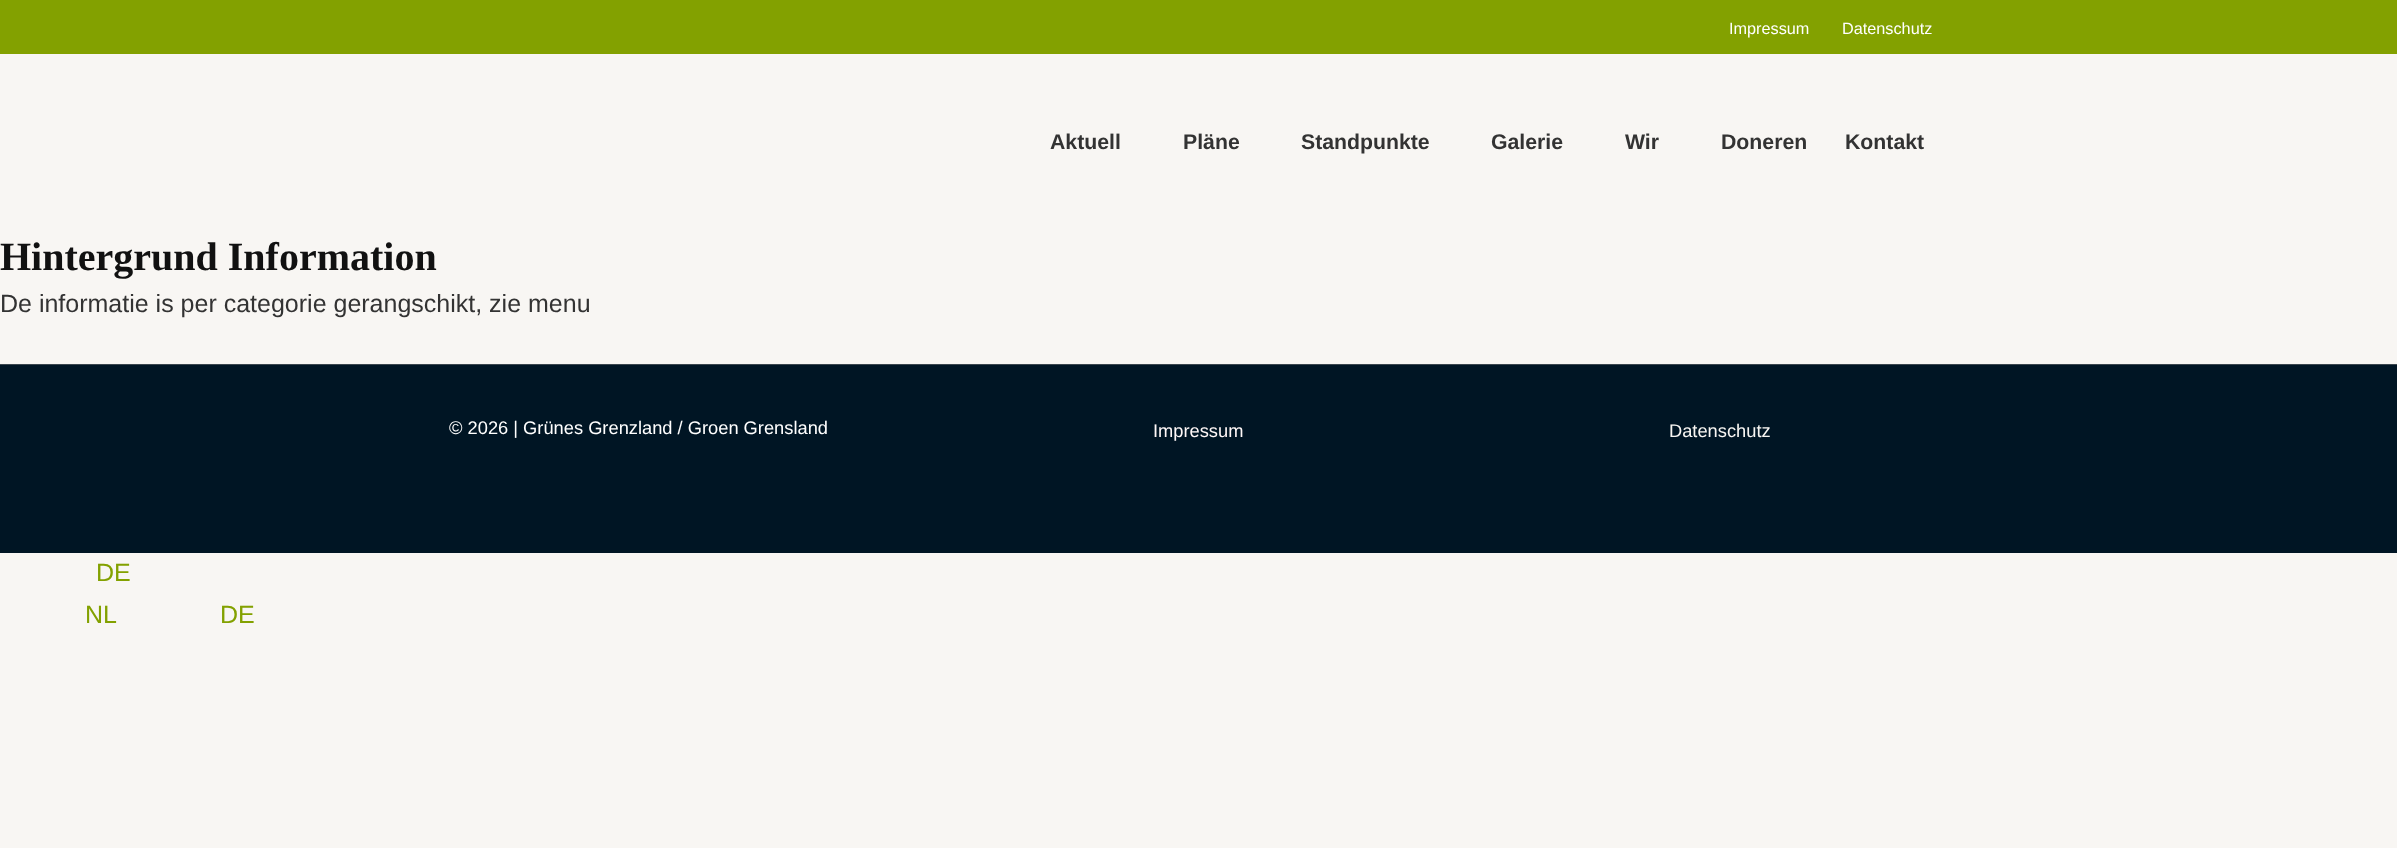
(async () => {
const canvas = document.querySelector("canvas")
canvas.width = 2397
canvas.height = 848
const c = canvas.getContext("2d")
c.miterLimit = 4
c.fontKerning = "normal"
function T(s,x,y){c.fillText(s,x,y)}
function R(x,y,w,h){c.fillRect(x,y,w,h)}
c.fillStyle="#f8f6f3"
R(0,0,2397,848)
c.fillStyle="#83a100"
R(0,0,2397,54)
c.font="16.25px Liberation Sans"
c.fillStyle="#fff"
T("Impressum",1729,34)
T("Datenschutz",1842,34)
c.font="bold 21.25px Liberation Sans"
c.fillStyle="#333"
T("Aktuell",1050,149)
T("Pläne",1183,149)
T("Standpunkte",1301,149)
T("Galerie",1491,149)
T("Wir",1625,149)
T("Doneren",1721,149)
T("Kontakt",1845,149)
c.font="bold 40px Liberation Serif"
c.fillStyle="#111"
T("Hintergrund Information",0,270)
c.font="25px Liberation Sans"
c.fillStyle="#333"
T("De informatie is per categorie gerangschikt, zie menu",0,312)
c.fillStyle="#001524"
R(0,365,2397,188)
c.fillStyle="#3b464e"
R(0,364,2397,1)
c.font="18.3px Liberation Sans"
c.fillStyle="#fff"
T("© 2026 | Grünes Grenzland / Groen Grensland",449,434)
c.fillStyle="#fff8f8"
T("Impressum",1153,437)
c.fillStyle="#f8f6f3"
T("Datenschutz",1669,437)
c.font="25px Liberation Sans"
c.fillStyle="#83a100"
T("DE",96,581)
T("NL",85,623)
T("DE",220,623)
})()
